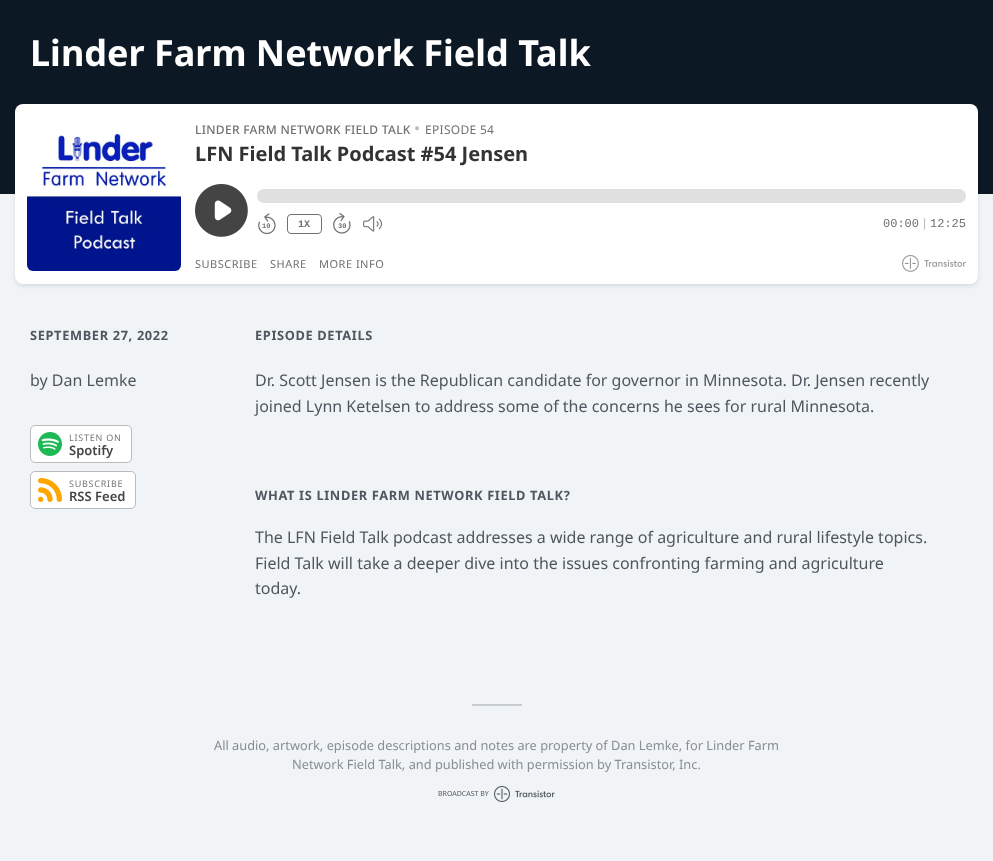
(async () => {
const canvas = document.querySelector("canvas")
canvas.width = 993
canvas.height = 861
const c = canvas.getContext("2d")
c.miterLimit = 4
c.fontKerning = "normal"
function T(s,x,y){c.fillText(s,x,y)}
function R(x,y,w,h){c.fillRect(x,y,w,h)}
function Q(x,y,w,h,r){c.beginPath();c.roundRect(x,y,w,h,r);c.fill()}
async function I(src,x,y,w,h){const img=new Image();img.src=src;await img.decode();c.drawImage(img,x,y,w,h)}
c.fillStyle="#f1f4f7"
R(0,0,993,861)
c.fillStyle="#0c1824"
R(0,0,993,194)
c.font="bold 36px Noto Sans"
c.fillStyle="#fff"
T("Linder Farm Network Field Talk",30,66)
c.fillStyle="#0000001a"
c.filter="blur(2px)"
c.beginPath()
c.roundRect(15,106,963,180,8)
c.fill()
c.filter="none"
c.fillStyle="#fff"
Q(15,104,963,180,8)
await I("1.png",27,132,154,139)
c.letterSpacing="0.3px"
c.font="500 12px Noto Sans"
c.fillStyle="#707070"
T("LINDER FARM NETWORK FIELD TALK",195,134)
c.font="16px Noto Sans"
c.fillStyle="#b8b8b8"
T("•",414,134)
c.font="12px Noto Sans"
c.fillStyle="#707070"
T("EPISODE 54",425,134)
c.letterSpacing="0px"
c.font="bold 20px Noto Sans"
c.fillStyle="#333"
T("LFN Field Talk Podcast #54 Jensen",195,161)
await I("2.png",195,184,53,53)
c.fillStyle="#e0e0e0"
Q(257,189,709,14,7)
c.font="bold 7px Liberation Mono"
c.fillStyle="#707070"
T("10",262,228)
await I("3.png",258,213,18,22)
c.beginPath()
c.roundRect(287.5,214.5,34,19,3.5)
c.strokeStyle="#707070"
c.stroke()
c.font="bold 10px Liberation Mono"
T("1X",298,227)
c.font="bold 7px Liberation Mono"
T("30",338,228)
await I("4.png",333,213,18,21)
await I("5.png",363,216,19,16)
c.font="12px Liberation Mono"
T("00:00",883,227)
c.fillStyle="#b8b8b8"
T("|",921,227)
c.fillStyle="#707070"
T("12:25",930,227)
c.letterSpacing="0.5px"
c.font="11px Noto Sans"
T("SUBSCRIBE",195,268)
T("SHARE",270,268)
T("MORE INFO",319,268)
await I("6.png",902,255,64,17)
c.letterSpacing="0.65px"
c.font="bold 12.8px Noto Sans"
c.fillStyle="#4e575f"
T("SEPTEMBER 27, 2022",30,340)
c.letterSpacing="0px"
c.font="16px Noto Sans"
T("by Dan Lemke",30,386)
c.fillStyle="#fff"
c.beginPath()
c.roundRect(30.5,425.5,101,37,4.5)
c.fill()
c.strokeStyle="#bbb"
c.stroke()
await I("7.png",38,432,24,24)
c.letterSpacing="0.75px"
c.font="9px Noto Sans"
c.fillStyle="#777"
T("LISTEN ON",69,441)
c.letterSpacing="0px"
c.font="600 13px Noto Sans"
c.fillStyle="#444"
T("Spotify",69,455)
c.fillStyle="#fff"
c.beginPath()
c.roundRect(30.5,471.5,105,37,4.5)
c.fill()
c.stroke()
await I("8.png",38,478,24,24)
c.letterSpacing="0.75px"
c.font="9px Noto Sans"
c.fillStyle="#777"
T("SUBSCRIBE",69,487)
c.letterSpacing="0px"
c.font="600 13px Noto Sans"
c.fillStyle="#444"
T("RSS Feed",69,501)
c.letterSpacing="0.65px"
c.font="bold 12.8px Noto Sans"
c.fillStyle="#4e575f"
T("EPISODE DETAILS",255,340)
c.letterSpacing="0px"
c.font="16px Noto Sans"
T("Dr. Scott Jensen is the Republican candidate for governor in Minnesota. Dr. Jensen recently",255,386)
T("joined Lynn Ketelsen to address some of the concerns he sees for rural Minnesota.",255,412)
c.letterSpacing="0.65px"
c.font="bold 12.8px Noto Sans"
T("WHAT IS LINDER FARM NETWORK FIELD TALK?",255,500)
c.letterSpacing="0px"
c.font="16px Noto Sans"
T("The LFN Field Talk podcast addresses a wide range of agriculture and rural lifestyle topics.",255,543)
T("Field Talk will take a deeper dive into the issues confronting farming and agriculture",255,569)
T("today.",255,594)
c.fillStyle="#c8cdd1"
R(472,704,50,2)
c.font="12.8px Noto Sans"
c.fillStyle="#878e94"
T("All audio, artwork, episode descriptions and notes are property of Dan Lemke, for Linder Farm",214,750)
T("Network Field Talk, and published with permission by Transistor, Inc.",292,769)
c.font="7px Noto Sans"
c.fillStyle="#4e575f"
T("BROADCAST BY",438,796)
await I("9.png",494,786,61,16)
})()
